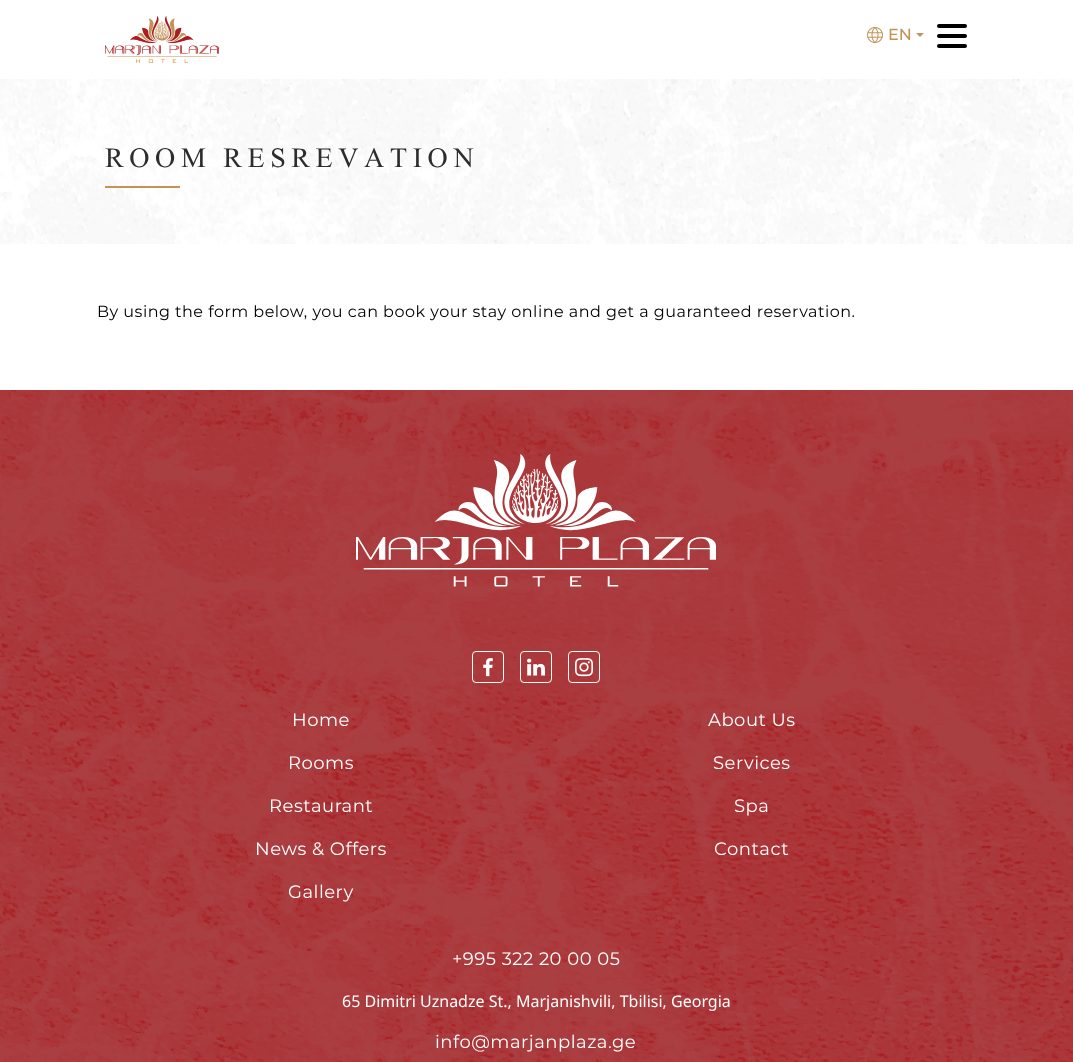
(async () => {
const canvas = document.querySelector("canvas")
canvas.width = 1073
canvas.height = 1062
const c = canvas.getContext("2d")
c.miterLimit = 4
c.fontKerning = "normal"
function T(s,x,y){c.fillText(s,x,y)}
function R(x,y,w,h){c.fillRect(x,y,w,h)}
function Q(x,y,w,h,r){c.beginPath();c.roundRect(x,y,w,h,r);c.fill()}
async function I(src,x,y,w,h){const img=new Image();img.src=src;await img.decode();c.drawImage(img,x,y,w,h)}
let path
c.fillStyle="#fff"
R(0,0,1073,1062)
await I("1.png",105,16,114,47)
await I("2.png",867,27,16,16)
c.font="500 16px Montserrat"
c.fillStyle="#c19357"
T("EN",888,40)
path = new Path2D("M916 33h8l-4 4z")
c.fill(path)
c.fillStyle="#000"
Q(937,24,30,4,2)
Q(937,34,30,4,2)
Q(937,44,30,4,2)
await I("3.png",0,79,1073,165)
c.letterSpacing="5.6px"
c.font="900 28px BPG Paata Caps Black"
c.fillStyle="#2d2d2d"
T("ROOM RESREVATION",105,167)
c.fillStyle="#c19357"
R(105,186,75,2)
c.letterSpacing="0.48px"
c.font="16px Montserrat"
c.fillStyle="#000"
T("By using the form below, you can book your stay online and get a guaranteed reservation.",97,317)
await I("4.png",0,390,1073,672)
await I("5.png",356,454,360,133)
c.beginPath()
c.roundRect(472.5,651.5,31,31,3.5)
c.strokeStyle="#fff"
c.stroke()
await I("6.png",483,658,10,19)
c.beginPath()
c.roundRect(520.5,651.5,31,31,3.5)
c.stroke()
await I("7.png",527,658,18,18)
c.beginPath()
c.roundRect(568.5,651.5,31,31,3.5)
c.stroke()
await I("8.png",575,658,18,19)
c.letterSpacing="0.5px"
c.font="18px Montserrat"
c.fillStyle="#fff"
T("Home",292,726)
T("About Us",708,726)
T("Rooms",288,769)
T("Services",713,769)
T("Restaurant",269,812)
T("Spa",734,812)
T("News & Offers",255,855)
T("Contact",714,855)
T("Gallery",288,898)
T("+995 322 20 00 05",452,965)
c.letterSpacing="0px"
c.font="16px Noto Sans"
T("65 Dimitri Uznadze St., Marjanishvili, Tbilisi, Georgia",342,1007)
c.letterSpacing="0.5px"
c.font="18px Montserrat"
T("info@marjanplaza.ge",435,1048)
})()
